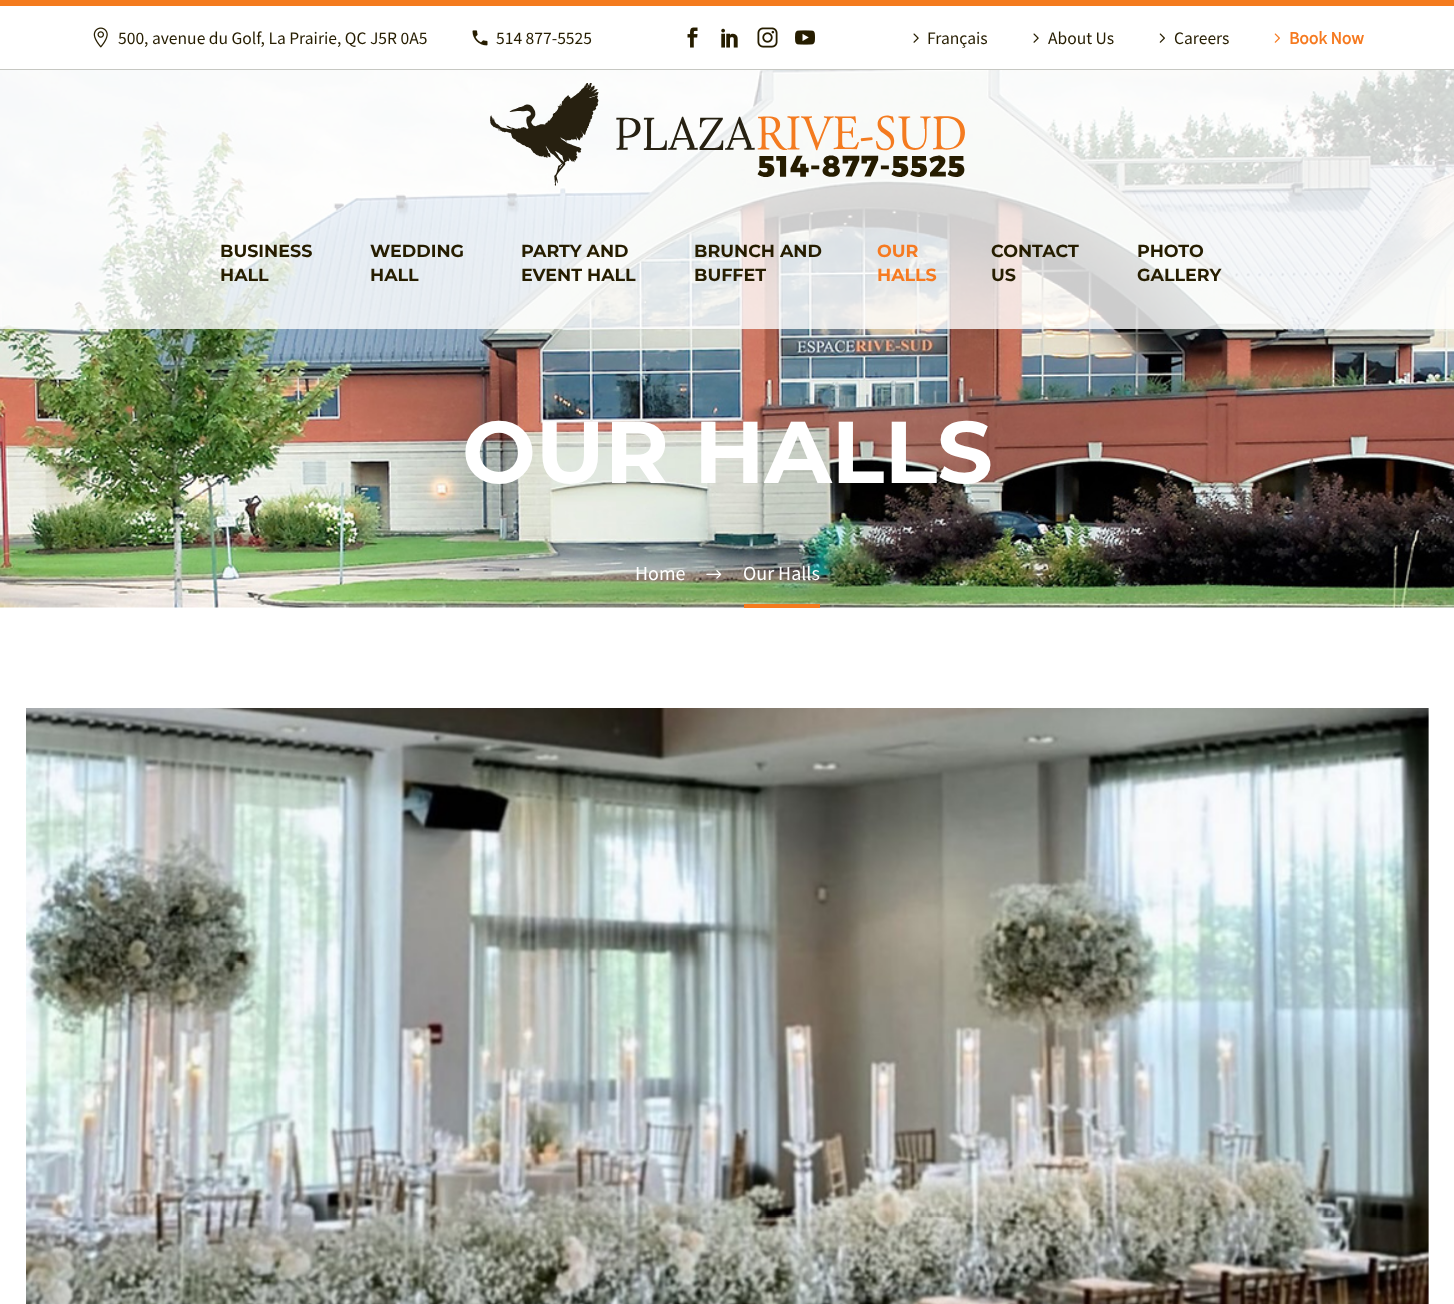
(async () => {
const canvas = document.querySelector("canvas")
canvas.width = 1454
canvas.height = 1304
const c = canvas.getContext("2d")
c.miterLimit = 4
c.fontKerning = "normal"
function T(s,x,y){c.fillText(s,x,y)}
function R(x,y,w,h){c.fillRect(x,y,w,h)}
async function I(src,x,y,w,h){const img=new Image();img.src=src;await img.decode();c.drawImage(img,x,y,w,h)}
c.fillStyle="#fff"
R(0,0,1454,1304)
c.fillStyle="#f47b1e"
R(0,0,1454,6)
c.fillStyle="#c6c7c2"
R(0,69,1454,1)
await I("1.png",93,27,15,21)
c.font="17.5px Source Sans Pro"
c.fillStyle="#261d00"
T("500, avenue du Golf, La Prairie, QC J5R 0A5",118,44)
await I("2.png",472,30,16,16)
T("514 877-5525",496,44)
await I("3.png",687,27,11,21)
await I("4.png",721,28,17,20)
await I("5.png",757,27,21,21)
await I("6.png",795,30,20,15)
await I("7.png",913,33,6,10)
T("Français",927,44)
await I("7.png",1033,33,6,10)
T("About Us",1048,44)
await I("8.png",1159,33,6,10)
T("Careers",1174,44)
await I("9.png",1274,33,6,10)
c.font="bold 17.5px Source Sans Pro"
c.fillStyle="#f67a20"
T("Book Now",1289,44)
await I("11.png",0,70,1454,538)
c.fillStyle="#ffffffcc"
R(0,70,1454,259)
await I("10.png",490,83,475,103)
c.font="bold 17.5px Montserrat"
c.fillStyle="#261d00"
T("BUSINESS",220,257)
T("HALL",220,281)
T("WEDDING",370,257)
T("HALL",370,281)
T("PARTY AND",521,257)
T("EVENT HALL",521,281)
T("BRUNCH AND",694,257)
T("BUFFET",694,281)
c.fillStyle="#f67a20"
T("OUR",877,257)
T("HALLS",877,281)
c.fillStyle="#261d00"
T("CONTACT",991,257)
T("US",991,281)
T("PHOTO",1137,257)
T("GALLERY",1137,281)
c.font="bold 87.5px Montserrat"
c.fillStyle="#fff"
T("OUR HALLS",462,483)
c.font="20px Source Sans Pro"
T("Home",635,580)
await I("12.png",706,570,16,9)
c.fillStyle="#f47b1e"
R(744,604,76,4)
c.fillStyle="#fff"
T("Our Halls",743,580)
await I("13.png",26,708,1403,596)
})()
